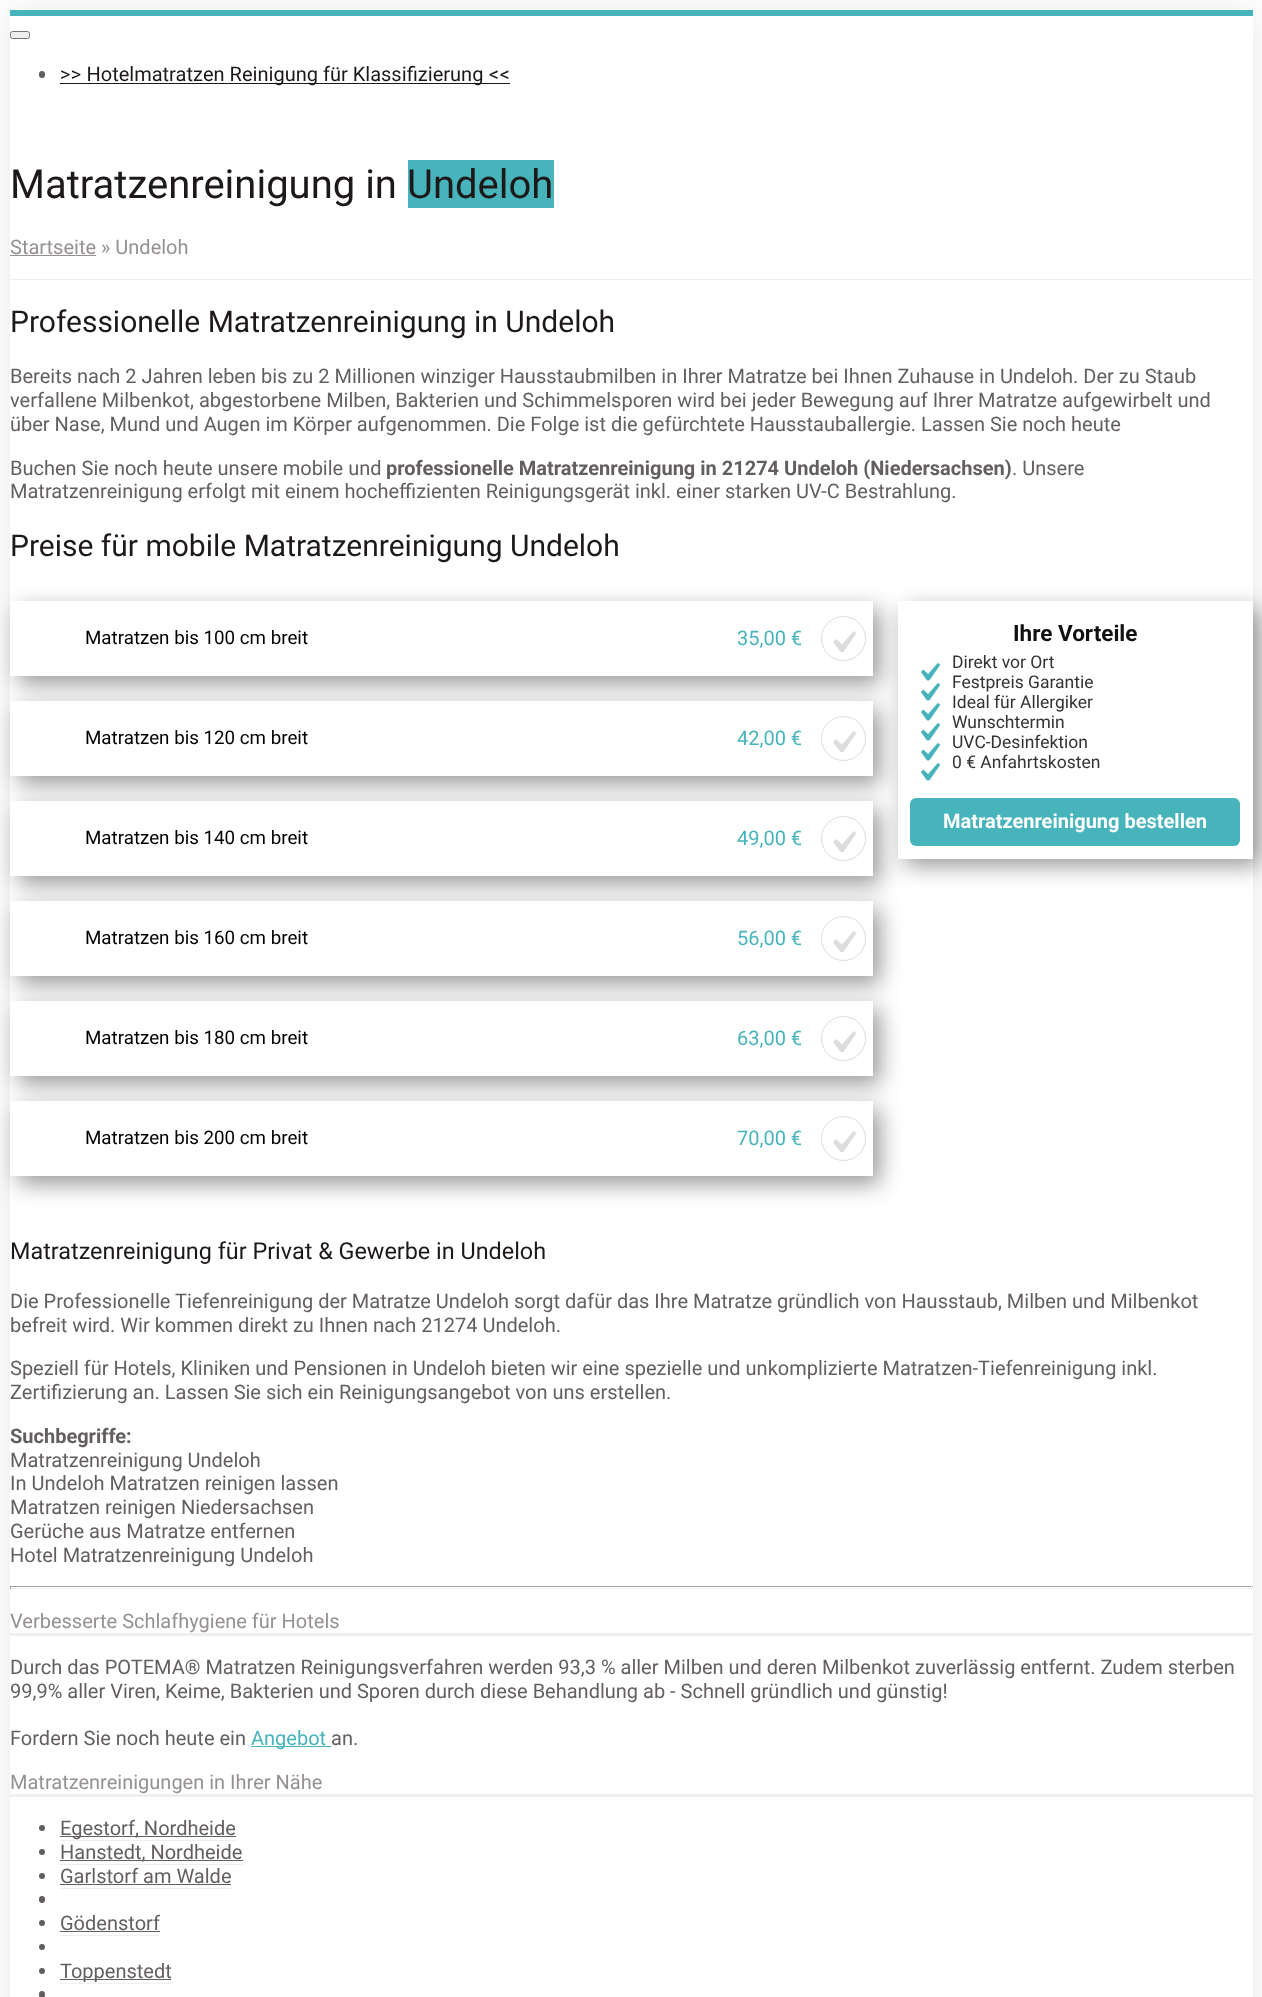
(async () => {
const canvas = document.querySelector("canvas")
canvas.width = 1262
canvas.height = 1997
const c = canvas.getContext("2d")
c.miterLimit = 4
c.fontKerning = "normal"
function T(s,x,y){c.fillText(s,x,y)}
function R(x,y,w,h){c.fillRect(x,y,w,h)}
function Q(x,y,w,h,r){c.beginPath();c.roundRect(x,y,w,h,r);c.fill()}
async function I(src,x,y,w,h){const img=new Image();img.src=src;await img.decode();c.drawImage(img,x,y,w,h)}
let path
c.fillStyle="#fff"
R(0,0,1262,1997)
c.fillStyle="#1e19191a"
c.filter="blur(19px)"
c.beginPath()
c.rect(10,10,1243,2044)
c.fill()
c.filter="none"
c.fillStyle="#fff"
R(10,16,1243,1981)
c.fillStyle="#47b4bc"
R(10,10,1243,6)
c.fillStyle="#efefef"
c.beginPath()
c.roundRect(10.5,31.5,19,7,2)
c.fill()
c.strokeStyle="#767676"
c.stroke()
c.fillStyle="#645f5f"
Q(39,71,6,7,3)
c.fillStyle="#1e1919"
R(60,83,450,1)
c.font="20px Heebo"
T(">> Hotelmatratzen Reinigung für Klassifizierung <<",60,81)
c.font="40px Roboto"
T("Matratzenreinigung in",10,198)
c.fillStyle="#47b4bc"
R(408,160,146,48)
c.fillStyle="#1e1919"
T("Undeloh",407,198)
c.fillStyle="#efefef"
R(10,279,1243,1)
c.font="20px Roboto"
c.fillStyle="#969191"
T("Startseite » Undeloh",10,254)
R(10,255,86,1)
c.font="30px Roboto"
c.fillStyle="#1e1919"
T("Professionelle Matratzenreinigung in Undeloh",10,332)
c.font="20px Roboto"
c.fillStyle="#645f5f"
T("Bereits nach 2 Jahren leben bis zu 2 Millionen winziger Hausstaubmilben in Ihrer Matratze bei Ihnen Zuhause in Undeloh. Der zu Staub",10,383)
T("verfallene Milbenkot, abgestorbene Milben, Bakterien und Schimmelsporen wird bei jeder Bewegung auf Ihrer Matratze aufgewirbelt und",10,407)
T("über Nase, Mund und Augen im Körper aufgenommen. Die Folge ist die gefürchtete Hausstauballergie. Lassen Sie noch heute",10,431)
T("Buchen Sie noch heute unsere mobile und",10,475)
c.font="bold 20px Roboto"
T("professionelle Matratzenreinigung in 21274 Undeloh (Niedersachsen)",386,475)
c.font="20px Roboto"
T(". Unsere",1012,475)
T("Matratzenreinigung erfolgt mit einem hocheffizienten Reinigungsgerät inkl. einer starken UV-C Bestrahlung.",10,498)
c.font="30px Roboto"
c.fillStyle="#1e1919"
T("Preise für mobile Matratzenreinigung Undeloh",10,556)
c.fillStyle="#00000066"
c.filter="blur(11px)"
c.beginPath()
c.rect(18,609,862,75)
c.fill()
c.filter="none"
c.fillStyle="#fff"
R(10,601,863,75)
c.font="18.75px Roboto"
c.fillStyle="#000"
T("Matratzen bis 100 cm breit",85,644)
c.font="20px Roboto"
c.fillStyle="#47b4bc"
T("35,00 €",737,645)
c.beginPath()
c.arc(843.5,638.5,22,0,7)
c.strokeStyle="#ddd"
c.stroke()
c.fillStyle="#ddd"
path = new Path2D("M853.5 631l3 2l-13 19h-3l-7.5-10l3-3l6 5.5z")
c.fill(path)
c.fillStyle="#00000066"
c.filter="blur(11px)"
c.beginPath()
c.rect(18,709,862,75)
c.fill()
c.filter="none"
c.fillStyle="#fff"
R(10,701,863,75)
c.font="18.75px Roboto"
c.fillStyle="#000"
T("Matratzen bis 120 cm breit",85,744)
c.font="20px Roboto"
c.fillStyle="#47b4bc"
T("42,00 €",737,745)
c.beginPath()
c.arc(843.5,738.5,22,0,7)
c.stroke()
c.fillStyle="#ddd"
path = new Path2D("M853.5 731l3 2l-13 19h-3l-7.5-10l3-3l6 5.5z")
c.fill(path)
c.fillStyle="#00000066"
c.filter="blur(11px)"
c.beginPath()
c.rect(18,809,862,75)
c.fill()
c.filter="none"
c.fillStyle="#fff"
R(10,801,863,75)
c.font="18.75px Roboto"
c.fillStyle="#000"
T("Matratzen bis 140 cm breit",85,844)
c.font="20px Roboto"
c.fillStyle="#47b4bc"
T("49,00 €",737,845)
c.beginPath()
c.arc(843.5,838.5,22,0,7)
c.stroke()
c.fillStyle="#ddd"
path = new Path2D("M853.5 831l3 2l-13 19h-3l-7.5-10l3-3l6 5.5z")
c.fill(path)
c.fillStyle="#00000066"
c.filter="blur(11px)"
c.beginPath()
c.rect(18,909,862,75)
c.fill()
c.filter="none"
c.fillStyle="#fff"
R(10,901,863,75)
c.font="18.75px Roboto"
c.fillStyle="#000"
T("Matratzen bis 160 cm breit",85,944)
c.font="20px Roboto"
c.fillStyle="#47b4bc"
T("56,00 €",737,945)
c.beginPath()
c.arc(843.5,938.5,22,0,7)
c.stroke()
c.fillStyle="#ddd"
path = new Path2D("M853.5 931l3 2l-13 19h-3l-7.5-10l3-3l6 5.5z")
c.fill(path)
c.fillStyle="#00000066"
c.filter="blur(11px)"
c.beginPath()
c.rect(18,1009,862,75)
c.fill()
c.filter="none"
c.fillStyle="#fff"
R(10,1001,863,75)
c.font="18.75px Roboto"
c.fillStyle="#000"
T("Matratzen bis 180 cm breit",85,1044)
c.font="20px Roboto"
c.fillStyle="#47b4bc"
T("63,00 €",737,1045)
c.beginPath()
c.arc(843.5,1038.5,22,0,7)
c.stroke()
c.fillStyle="#ddd"
path = new Path2D("M853.5 1031l3 2l-13 19h-3l-7.5-10l3-3l6 5.5z")
c.fill(path)
c.fillStyle="#00000066"
c.filter="blur(11px)"
c.beginPath()
c.rect(18,1109,862,75)
c.fill()
c.filter="none"
c.fillStyle="#fff"
R(10,1101,863,75)
c.font="18.75px Roboto"
c.fillStyle="#000"
T("Matratzen bis 200 cm breit",85,1144)
c.font="20px Roboto"
c.fillStyle="#47b4bc"
T("70,00 €",737,1145)
c.beginPath()
c.arc(843.5,1138.5,22,0,7)
c.stroke()
c.fillStyle="#ddd"
path = new Path2D("M853.5 1131l3 2l-13 19h-3l-7.5-10l3-3l6 5.5z")
c.fill(path)
c.fillStyle="#00000066"
c.filter="blur(11px)"
c.beginPath()
c.rect(905,609,355,257)
c.fill()
c.filter="none"
c.fillStyle="#fff"
R(898,601,355,258)
c.font="bold 22.5px Roboto"
c.fillStyle="#111"
T("Ihre Vorteile",1013,641)
c.font="17.5px Roboto"
c.fillStyle="#333"
T("Direkt vor Ort",952,668)
await I("1.png",920,663,21,18)
await I("1.png",920,683,21,18)
T("Festpreis Garantie",952,688)
await I("1.png",920,703,21,18)
T("Ideal für Allergiker",952,708)
T("Wunschtermin",952,728)
await I("1.png",920,723,21,18)
T("UVC-Desinfektion",952,748)
await I("1.png",920,743,21,18)
T("0 € Anfahrtskosten",952,768)
await I("1.png",920,763,21,18)
c.fillStyle="#47b4bc"
Q(910,798,330,48,6)
c.font="bold 20px Roboto"
c.fillStyle="#fff"
T("Matratzenreinigung bestellen",943,828)
c.font="23.4px Roboto"
c.fillStyle="#1e1919"
T("Matratzenreinigung für Privat & Gewerbe in Undeloh",10,1259)
c.font="20px Roboto"
c.fillStyle="#645f5f"
T("Die Professionelle Tiefenreinigung der Matratze Undeloh sorgt dafür das Ihre Matratze gründlich von Hausstaub, Milben und Milbenkot",10,1308)
T("befreit wird. Wir kommen direkt zu Ihnen nach 21274 Undeloh.",10,1332)
T("Speziell für Hotels, Kliniken und Pensionen in Undeloh bieten wir eine spezielle und unkomplizierte Matratzen-Tiefenreinigung inkl.",10,1375)
T("Zertifizierung an. Lassen Sie sich ein Reinigungsangebot von uns erstellen.",10,1399)
c.font="bold 20px Roboto"
T("Suchbegriffe:",10,1443)
c.font="20px Roboto"
T("Matratzenreinigung Undeloh",10,1467)
T("In Undeloh Matratzen reinigen lassen",10,1490)
T("Matratzen reinigen Niedersachsen",10,1514)
T("Gerüche aus Matratze entfernen",10,1538)
T("Hotel Matratzenreinigung Undeloh",10,1562)
c.fillStyle="#9f9f9f"
R(10,1586,1243,1)
c.fillStyle="#efefef"
R(1251,1586,1,3)
R(10,1588,1243,1)
c.fillStyle="#9f9f9f"
R(10,1586,1,3)
c.fillStyle="#efefef"
R(10,1633,1243,3)
c.fillStyle="#969191"
T("Verbesserte Schlafhygiene für Hotels",10,1628)
c.fillStyle="#645f5f"
T("Durch das POTEMA® Matratzen Reinigungsverfahren werden 93,3 % aller Milben und deren Milbenkot zuverlässig entfernt. Zudem sterben",10,1674)
T("99,9% aller Viren, Keime, Bakterien und Sporen durch diese Behandlung ab - Schnell gründlich und günstig!",10,1698)
T("Fordern Sie noch heute ein",10,1745)
c.fillStyle="#47b4bc"
R(251,1746,80,1)
T("Angebot",251,1745)
c.fillStyle="#645f5f"
T("an.",331,1745)
c.fillStyle="#efefef"
R(10,1794,1243,3)
c.fillStyle="#969191"
T("Matratzenreinigungen in Ihrer Nähe",10,1789)
c.fillStyle="#645f5f"
c.beginPath()
c.arc(42,1828,3,0,7)
c.fill()
R(60,1836,176,1)
T("Egestorf, Nordheide",60,1835)
c.fillStyle="#efefef"
R(60,1840,176,1)
c.fillStyle="#645f5f"
c.beginPath()
c.arc(42,1852,3,0,7)
c.fill()
R(60,1860,183,1)
T("Hanstedt, Nordheide",60,1859)
c.fillStyle="#efefef"
R(60,1864,183,1)
c.fillStyle="#645f5f"
c.beginPath()
c.arc(42,1876,3,0,7)
c.fill()
T("Garlstorf am Walde",60,1883)
c.fillStyle="#efefef"
R(60,1888,171,1)
c.fillStyle="#645f5f"
R(60,1884,171,1)
Q(39,1896,6,7,3)
c.beginPath()
c.arc(42,1923,3,0,7)
c.fill()
T("Gödenstorf",60,1930)
c.fillStyle="#efefef"
R(60,1935,100,1)
c.fillStyle="#645f5f"
R(60,1931,100,1)
c.beginPath()
c.arc(42,1947,3,0,7)
c.fill()
c.beginPath()
c.arc(42,1971,3,0,7)
c.fill()
R(60,1979,111,1)
T("Toppenstedt",60,1978)
c.fillStyle="#efefef"
R(60,1983,111,1)
c.fillStyle="#645f5f"
Q(39,1991,6,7,3)
})()
